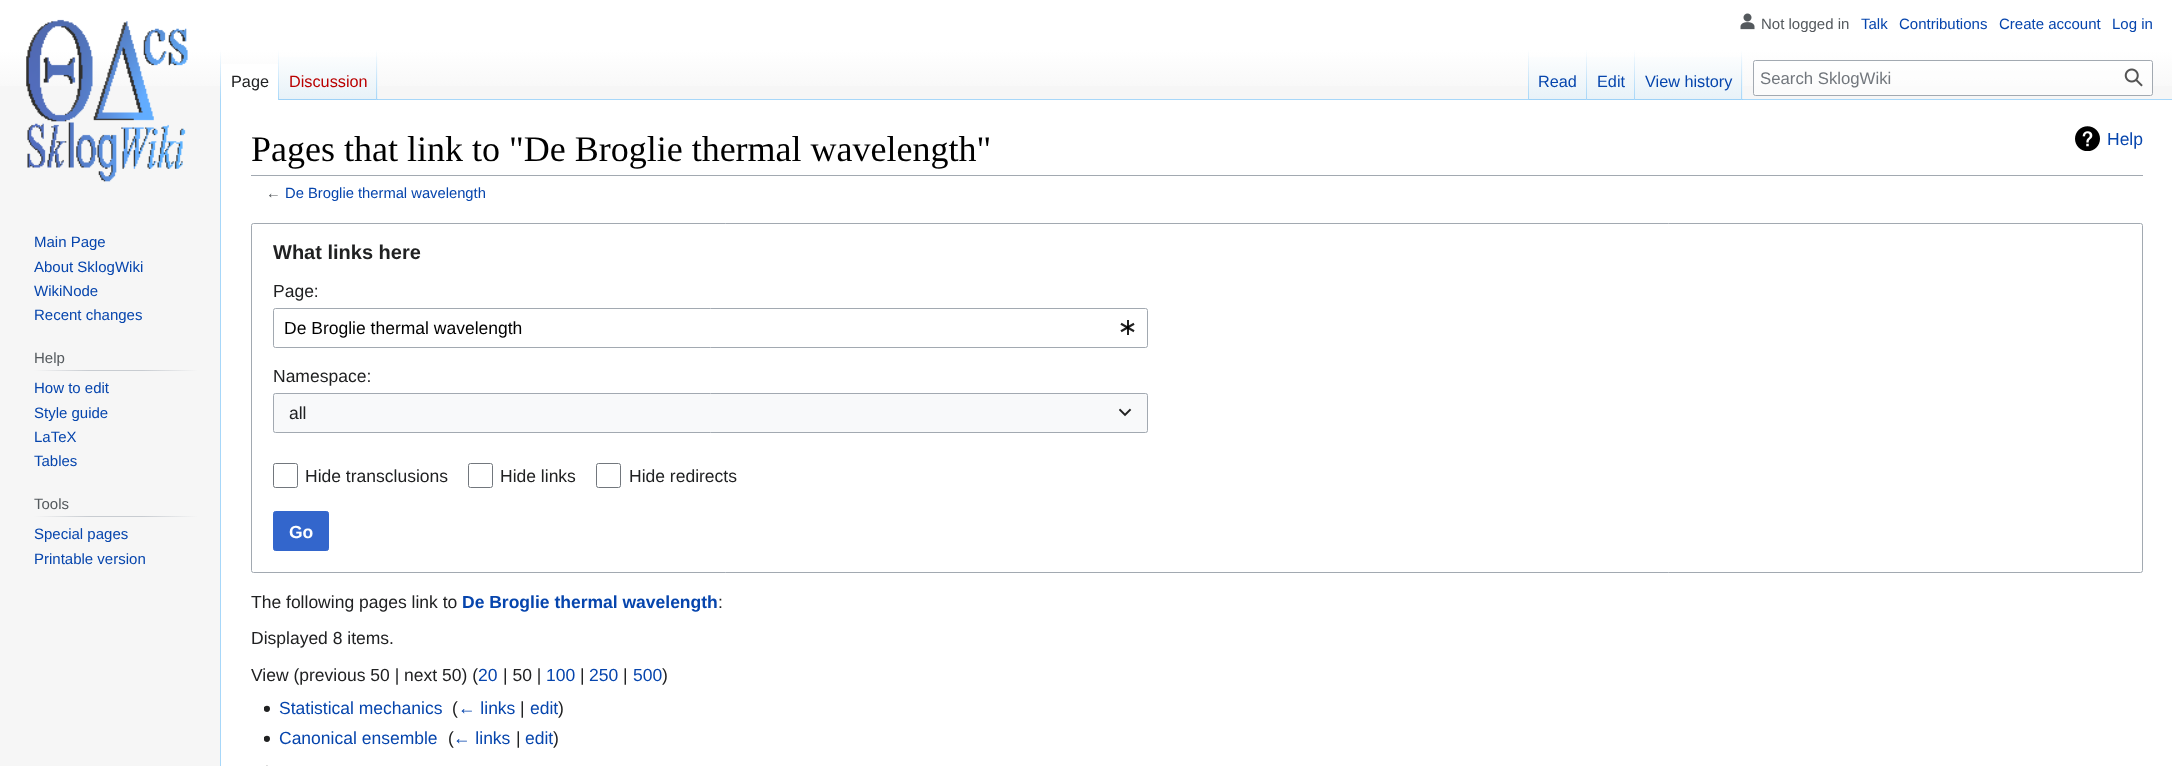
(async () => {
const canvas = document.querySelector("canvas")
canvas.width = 2172
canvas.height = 766
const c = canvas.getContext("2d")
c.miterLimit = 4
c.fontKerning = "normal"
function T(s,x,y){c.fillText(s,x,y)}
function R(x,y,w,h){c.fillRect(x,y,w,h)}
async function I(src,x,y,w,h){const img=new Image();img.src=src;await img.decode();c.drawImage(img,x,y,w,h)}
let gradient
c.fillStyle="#f6f6f6"
R(0,0,2172,766)
gradient = c.createLinearGradient(1086,0,1086,100)
gradient.addColorStop(.5,"#fff")
gradient.addColorStop(1,"#f6f6f6")
c.fillStyle = gradient
R(0,0,2172,86)
await I("1.png",1740,13,15,17)
c.font="15px Liberation Sans"
c.fillStyle="#54595d"
T("Not logged in",1761,29)
c.fillStyle="#0645ad"
T("Talk",1861,29)
T("Contributions",1899,29)
T("Create account",1999,29)
T("Log in",2112,29)
c.fillStyle="#a7d7f9"
R(220,99,1,667)
gradient = c.createLinearGradient(221,50,221,100)
gradient.addColorStop(0,"#a7d7f900")
gradient.addColorStop(1,"#a7d7f9")
c.fillStyle = gradient
R(220,50,1,50)
c.fillStyle="#fff"
R(221,64,57,36)
gradient = c.createLinearGradient(278,50,278,100)
gradient.addColorStop(0,"#fff")
gradient.addColorStop(1,"#a7d7f9")
c.fillStyle = gradient
R(278,50,1,50)
c.font="16.25px Liberation Sans"
c.fillStyle="#202122"
T("Page",231,87)
gradient = c.createLinearGradient(328,100,328,50)
gradient.addColorStop(0,"#77c1f6")
gradient.addColorStop(.03,"#e8f2f8")
gradient.addColorStop(1,"#fff")
c.fillStyle = gradient
R(279,57,99,43)
gradient = c.createLinearGradient(377,50,377,100)
gradient.addColorStop(0,"#a7d7f900")
gradient.addColorStop(1,"#a7d7f9")
c.fillStyle = gradient
R(376,50,1,50)
c.fillStyle="#ba0000"
T("Discussion",289,87)
c.fillStyle="#a7d7f9"
R(378,99,1794,1)
gradient = c.createLinearGradient(1528,50,1528,100)
gradient.addColorStop(0,"#a7d7f900")
gradient.addColorStop(1,"#a7d7f9")
c.fillStyle = gradient
R(1528,50,1,50)
gradient = c.createLinearGradient(1558,100,1558,50)
gradient.addColorStop(0,"#77c1f6")
gradient.addColorStop(.03,"#e8f2f8")
gradient.addColorStop(1,"#fff")
c.fillStyle = gradient
R(1529,57,59,43)
gradient = c.createLinearGradient(1587,50,1587,100)
gradient.addColorStop(0,"#a7d7f900")
gradient.addColorStop(1,"#a7d7f9")
c.fillStyle = gradient
R(1586,50,1,50)
c.fillStyle="#0645ad"
T("Read",1538,87)
gradient = c.createLinearGradient(1611,100,1611,50)
gradient.addColorStop(0,"#77c1f6")
gradient.addColorStop(.03,"#e8f2f8")
gradient.addColorStop(1,"#fff")
c.fillStyle = gradient
R(1588,57,47,43)
gradient = c.createLinearGradient(1634,50,1634,100)
gradient.addColorStop(0,"#a7d7f900")
gradient.addColorStop(1,"#a7d7f9")
c.fillStyle = gradient
R(1634,50,1,50)
c.fillStyle="#0645ad"
T("Edit",1597,87)
gradient = c.createLinearGradient(1689,100,1689,50)
gradient.addColorStop(0,"#77c1f6")
gradient.addColorStop(.03,"#e8f2f8")
gradient.addColorStop(1,"#fff")
c.fillStyle = gradient
R(1635,57,108,43)
gradient = c.createLinearGradient(1742,50,1742,100)
gradient.addColorStop(0,"#a7d7f900")
gradient.addColorStop(1,"#a7d7f9")
c.fillStyle = gradient
R(1741,50,1,50)
c.fillStyle="#0645ad"
T("View history",1645,87)
c.fillStyle="#ffffff80"
c.beginPath()
c.roundRect(1753.5,60.5,399,35,2)
c.fill()
c.strokeStyle="#a2a9b1"
c.stroke()
c.font="16.75px Liberation Sans"
c.fillStyle="#72777d"
T("Search SklogWiki",1760,84)
await I("2.png",2124,68,19,19)
await I("3.png",26,19,162,163)
c.font="15px Liberation Sans"
c.fillStyle="#0645ad"
T("Main Page",34,247)
T("About SklogWiki",34,272)
T("WikiNode",34,296)
T("Recent changes",34,320)
gradient = c.createLinearGradient(34,371,198,371)
gradient.addColorStop(0,"#f6f6f6")
gradient.addColorStop(.33,"#c8ccd1")
gradient.addColorStop(.66,"#c8ccd1")
gradient.addColorStop(1,"#f6f6f6")
c.fillStyle = gradient
R(34,370,164,1)
c.fillStyle="#54595d"
T("Help",34,363)
c.fillStyle="#0645ad"
T("How to edit",34,393)
T("Style guide",34,418)
T("LaTeX",34,442)
T("Tables",34,466)
gradient = c.createLinearGradient(34,517,198,517)
gradient.addColorStop(0,"#f6f6f6")
gradient.addColorStop(.33,"#c8ccd1")
gradient.addColorStop(.66,"#c8ccd1")
gradient.addColorStop(1,"#f6f6f6")
c.fillStyle = gradient
R(34,516,164,1)
c.fillStyle="#54595d"
T("Tools",34,509)
c.fillStyle="#0645ad"
T("Special pages",34,539)
T("Printable version",34,564)
c.fillStyle="#fff"
R(221,100,1951,666)
c.fillStyle="#a2a9b1"
R(251,175,1892,1)
c.font="36px Liberation Serif"
c.fillStyle="#000"
T("Pages that link to \"De Broglie thermal wavelength\"",251,161)
await I("4.png",2075,126,25,25)
c.font="17.5px Liberation Sans"
c.fillStyle="#0645ad"
T("Help",2107,145)
c.font="14.75px Liberation Sans"
c.fillStyle="#54595d"
T("←",266,198)
c.fillStyle="#0645ad"
T("De Broglie thermal wavelength",285,198)
c.beginPath()
c.roundRect(251.5,223.5,1891,349,2)
c.stroke()
c.font="bold 20px Liberation Sans"
c.fillStyle="#202122"
T("What links here",273,259)
c.font="17.5px Liberation Sans"
T("Page:",273,297)
c.beginPath()
c.roundRect(273.5,308.5,874,39,2)
c.stroke()
c.fillStyle="#000"
T("De Broglie thermal wavelength",284,334)
await I("5.png",1120,320,15,15)
c.fillStyle="#202122"
T("Namespace:",273,382)
c.fillStyle="#f8f9fa"
R(273,393,875,40)
c.beginPath()
c.roundRect(273.5,393.5,874,39,2)
c.stroke()
c.fillStyle="#202122"
T("all",289,419)
await I("6.png",1119,408,13,9)
c.beginPath()
c.roundRect(273.5,463.5,24,24,2)
c.strokeStyle="#72777d"
c.stroke()
T("Hide transclusions",305,482)
c.beginPath()
c.roundRect(468.5,463.5,24,24,2)
c.stroke()
T("Hide links",500,482)
c.beginPath()
c.roundRect(596.5,463.5,24,24,2)
c.stroke()
T("Hide redirects",629,482)
c.fillStyle="#36c"
c.beginPath()
c.roundRect(273.5,511.5,55,39,2)
c.fill()
c.strokeStyle="#36c"
c.stroke()
c.font="bold 17.5px Liberation Sans"
c.fillStyle="#fff"
T("Go",289,538)
c.font="17.5px Liberation Sans"
c.fillStyle="#202122"
T("The following pages link to",251,608)
c.font="bold 17.5px Liberation Sans"
c.fillStyle="#0645ad"
T("De Broglie thermal wavelength",462,608)
c.font="17.5px Liberation Sans"
c.fillStyle="#202122"
T(":",718,608)
T("Displayed 8 items.",251,644)
T("View (previous 50 | next 50) (",251,681)
c.fillStyle="#0645ad"
T("20",478,681)
c.fillStyle="#202122"
T("| 50 |",503,681)
c.fillStyle="#0645ad"
T("100",546,681)
c.fillStyle="#202122"
T("|",580,681)
c.fillStyle="#0645ad"
T("250",589,681)
c.fillStyle="#202122"
T("|",623,681)
c.fillStyle="#0645ad"
T("500",633,681)
c.fillStyle="#202122"
T(")",662,681)
await I("7.png",264,705,6,7)
c.fillStyle="#0645ad"
T("Statistical mechanics",279,714)
c.fillStyle="#202122"
T("(",452,714)
c.fillStyle="#0645ad"
T("← links",458,714)
c.fillStyle="#202122"
T("|",520,714)
c.fillStyle="#0645ad"
T("edit",530,714)
c.fillStyle="#202122"
T(")",558,714)
await I("7.png",264,735,6,7)
c.fillStyle="#0645ad"
T("Canonical ensemble",279,744)
c.fillStyle="#202122"
T("(",448,744)
c.fillStyle="#0645ad"
T("← links",453,744)
c.fillStyle="#202122"
T("|",516,744)
c.fillStyle="#0645ad"
T("edit",525,744)
c.fillStyle="#202122"
T(")",553,744)
await I("8.png",266,765,2,1)
})()
